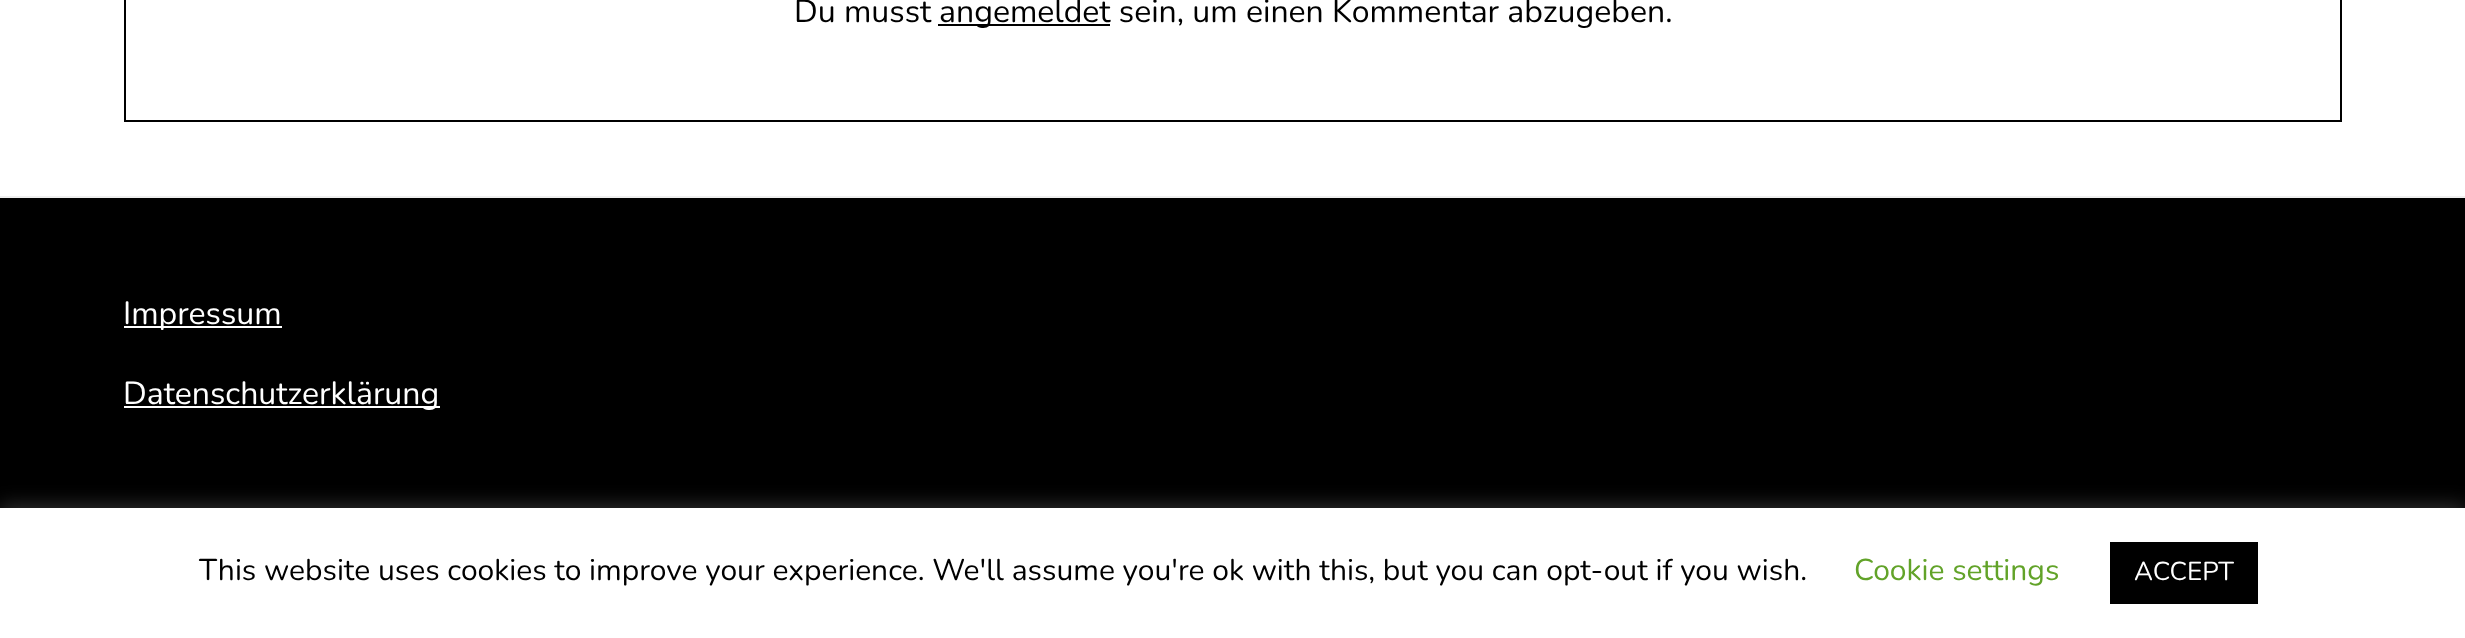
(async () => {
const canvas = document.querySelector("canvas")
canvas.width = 2465
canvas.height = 638
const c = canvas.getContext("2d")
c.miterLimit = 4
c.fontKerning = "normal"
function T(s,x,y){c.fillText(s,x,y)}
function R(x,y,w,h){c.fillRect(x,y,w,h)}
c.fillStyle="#fff"
R(0,0,2465,638)
c.strokeStyle="#000"
c.lineWidth=2
c.strokeRect(125,-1,2216,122)
c.font="32px Nunito"
c.fillStyle="#000"
T("Du musst",794,22)
R(938,24,172,2)
T("angemeldet sein, um einen Kommentar abzugeben.",939,22)
R(0,198,2465,310)
c.fillStyle="#efefef"
R(0,196,2465,2)
c.fillStyle="#fff"
R(124,326,158,2)
T("Impressum",123,324)
R(124,406,316,2)
T("Datenschutzerklärung",123,404)
c.fillStyle="#acabab4d"
c.filter="blur(10px)"
c.beginPath()
c.rect(0,506,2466,130)
c.fill()
c.filter="none"
c.fillStyle="#fff"
R(0,508,2465,130)
c.font="30px Nunito"
c.fillStyle="#000"
T("This website uses cookies to improve your experience. We'll assume you're ok with this, but you can opt-out if you wish.",199,580)
c.fillStyle="#62a329"
T("Cookie settings",1854,580)
c.fillStyle="#000"
R(2110,542,148,62)
c.font="26px Nunito"
c.fillStyle="#fff"
T("ACCEPT",2134,580)
})()
